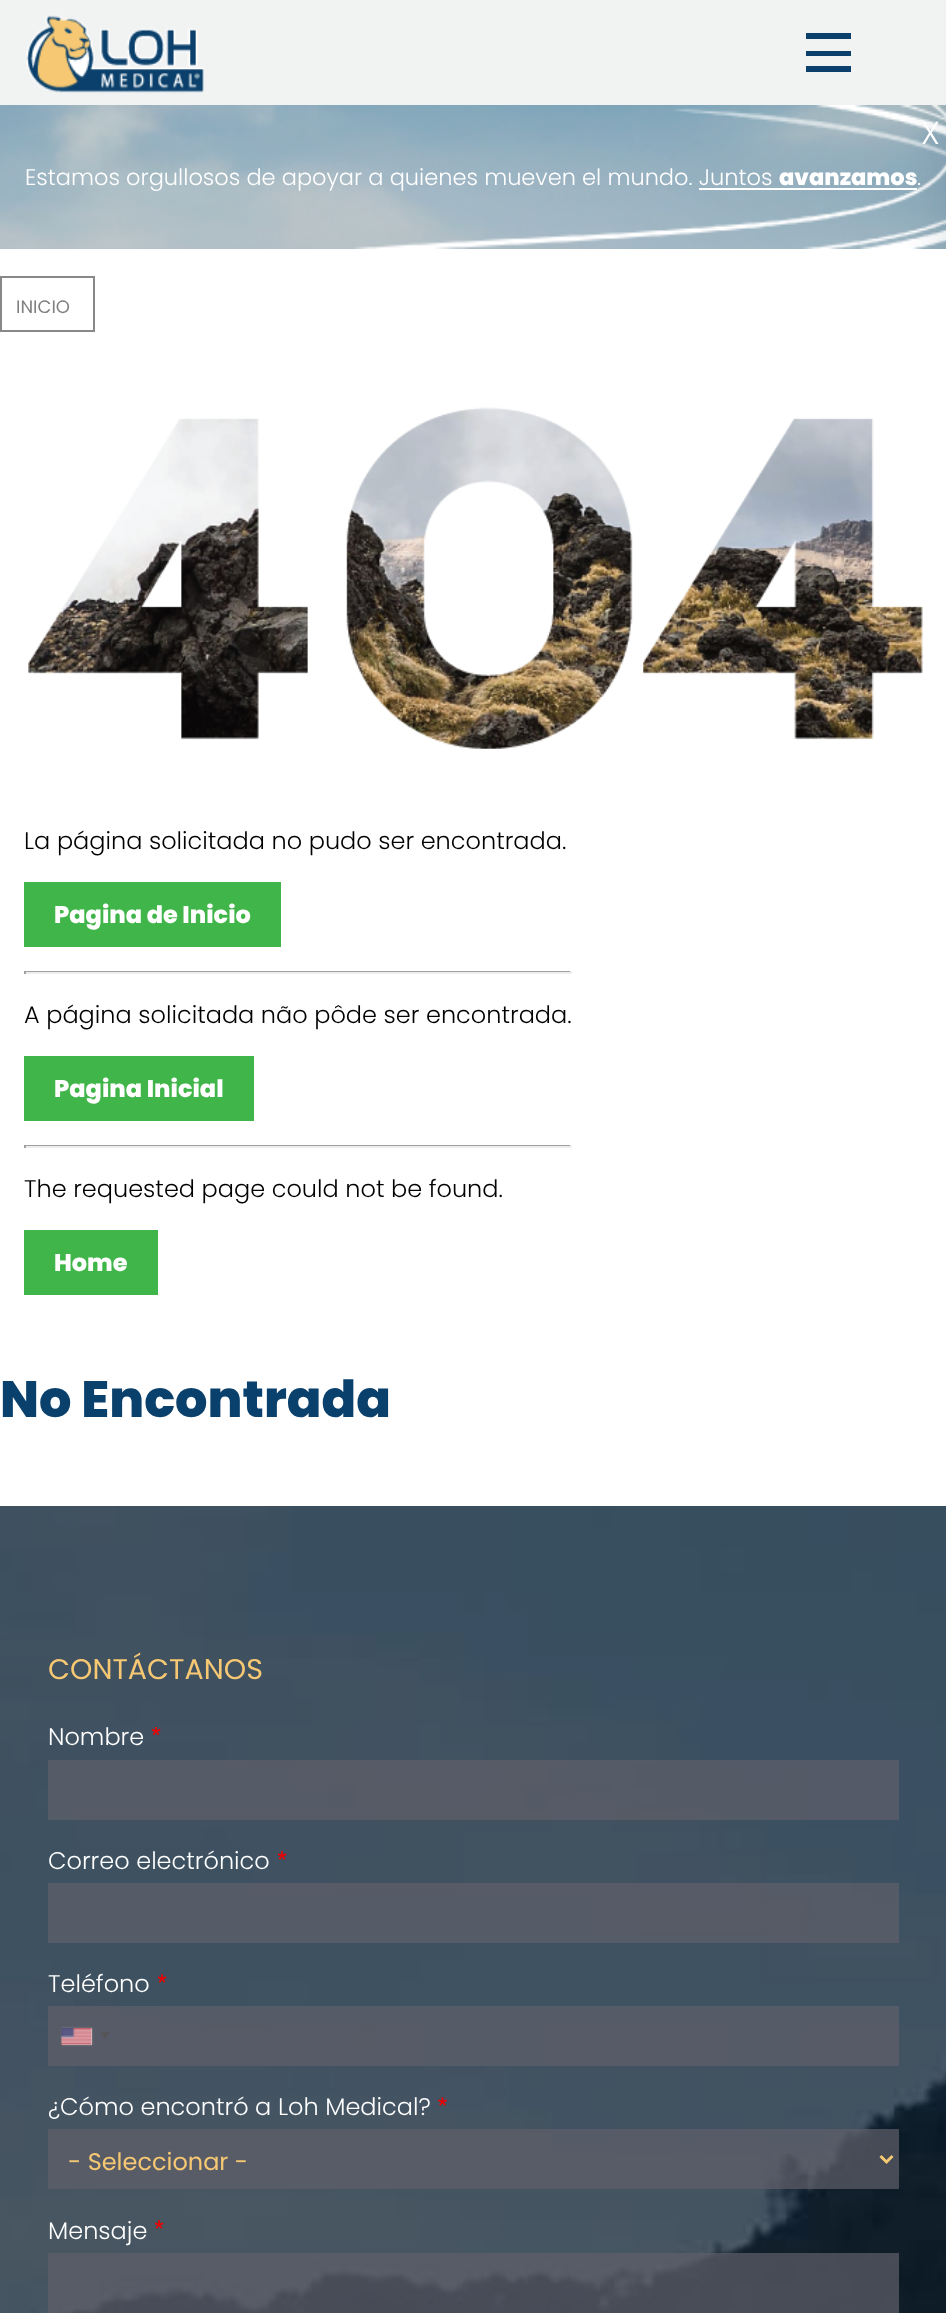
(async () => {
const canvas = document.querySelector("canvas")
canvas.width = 946
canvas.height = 2313
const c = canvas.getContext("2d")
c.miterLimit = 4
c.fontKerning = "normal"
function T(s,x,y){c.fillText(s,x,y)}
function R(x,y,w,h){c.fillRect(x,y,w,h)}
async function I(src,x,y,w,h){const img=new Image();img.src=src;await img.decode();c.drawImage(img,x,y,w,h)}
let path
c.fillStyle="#fff"
R(0,0,946,2313)
c.fillStyle="#f1f2f2"
R(0,0,946,105)
await I("1.png",26,15,178,78)
c.fillStyle="#0a406b"
R(806,33,45,6)
R(806,66,45,6)
R(806,51,45,5)
await I("2.png",0,105,946,144)
c.font="300 32px Poppins"
c.fillStyle="#fff"
T("X",921,144)
c.font="300 22.5px Poppins"
T("Estamos orgullosos de apoyar a quienes mueven el mundo. Juntos",25,185)
c.font="800 22.5px Poppins"
T("avanzamos",779,185)
R(699,188,218,2)
c.font="300 22.5px Poppins"
T(".",917,185)
c.strokeStyle="#888"
c.lineWidth=2
c.strokeRect(1,277,93,54)
c.font="18px Poppins"
c.fillStyle="#808080"
T("INICIO",16,313)
await I("3.png",28,407,895,342)
c.font="300 24px Poppins"
c.fillStyle="#000"
T("La página solicitada no pudo ser encontrada.",24,849)
c.fillStyle="#40b549"
R(24,882,257,65)
c.font="800 24px Poppins"
c.fillStyle="#fff"
T("Pagina de Inicio",54,923)
c.fillStyle="#9f9f9f"
R(24,971,548,1)
c.fillStyle="#eee"
R(570,971,2,3)
R(24,972,548,2)
c.fillStyle="#9f9f9f"
R(24,971,2,3)
c.font="300 24px Poppins"
c.fillStyle="#000"
T("A página solicitada não pôde ser encontrada.",24,1023)
c.fillStyle="#40b549"
R(24,1056,230,65)
c.font="800 24px Poppins"
c.fillStyle="#fff"
T("Pagina Inicial",54,1097)
c.fillStyle="#9f9f9f"
R(24,1145,548,1)
c.fillStyle="#eee"
R(570,1145,2,3)
R(24,1146,548,2)
c.fillStyle="#9f9f9f"
R(24,1145,2,3)
c.font="300 24px Poppins"
c.fillStyle="#000"
T("The requested page could not be found.",24,1197)
c.fillStyle="#40b549"
R(24,1230,134,65)
c.font="800 24px Poppins"
c.fillStyle="#fff"
T("Home",54,1271)
c.font="800 51px Poppins"
c.fillStyle="#0a406c"
T("No Encontrada",0,1417)
await I("4.png",0,1506,946,807)
c.font="28.5px Poppins"
c.fillStyle="#f6c873"
T("CONTÁCTANOS",48,1679)
c.font="300 24px Poppins"
c.fillStyle="#fff"
T("Nombre",48,1745)
await I("5.png",152,1727,9,9)
c.fillStyle="#60606ab3"
R(48,1760,851,60)
c.fillStyle="#fff"
T("Correo electrónico",48,1869)
await I("6.png",278,1851,9,9)
c.fillStyle="#60606ab3"
R(48,1883,851,60)
c.fillStyle="#fff"
T("Teléfono",48,1992)
await I("7.png",158,1974,9,9)
c.fillStyle="#60606ab3"
R(48,2006,851,60)
c.fillStyle="#888"
c.filter="blur(1px)"
c.beginPath()
c.rect(62,2028,30,17)
c.fill()
c.filter="none"
c.fillStyle="#dbdbdb"
R(62,2028,30,17)
await I("8.png",61,2028,31,17)
c.fillStyle="#555"
path = new Path2D("M100.5 2032.5h9l-4.5 6z")
c.fill(path)
c.fillStyle="#fff"
T("¿Cómo encontró a Loh Medical?",48,2115)
await I("9.png",438,2097,9,9)
c.fillStyle="#60606ab3"
R(48,2129,851,60)
path = new Path2D("M880.5 2156l6 6l6-6")
c.strokeStyle="#f6c873"
c.lineWidth=3
c.stroke(path)
c.font="24px Poppins"
c.fillStyle="#f6c873"
T("- Seleccionar -",68,2170)
c.font="300 24px Poppins"
c.fillStyle="#fff"
T("Mensaje",48,2239)
await I("10.png",155,2220,9,9)
c.fillStyle="#60606ab3"
R(48,2253,851,60)
})()
